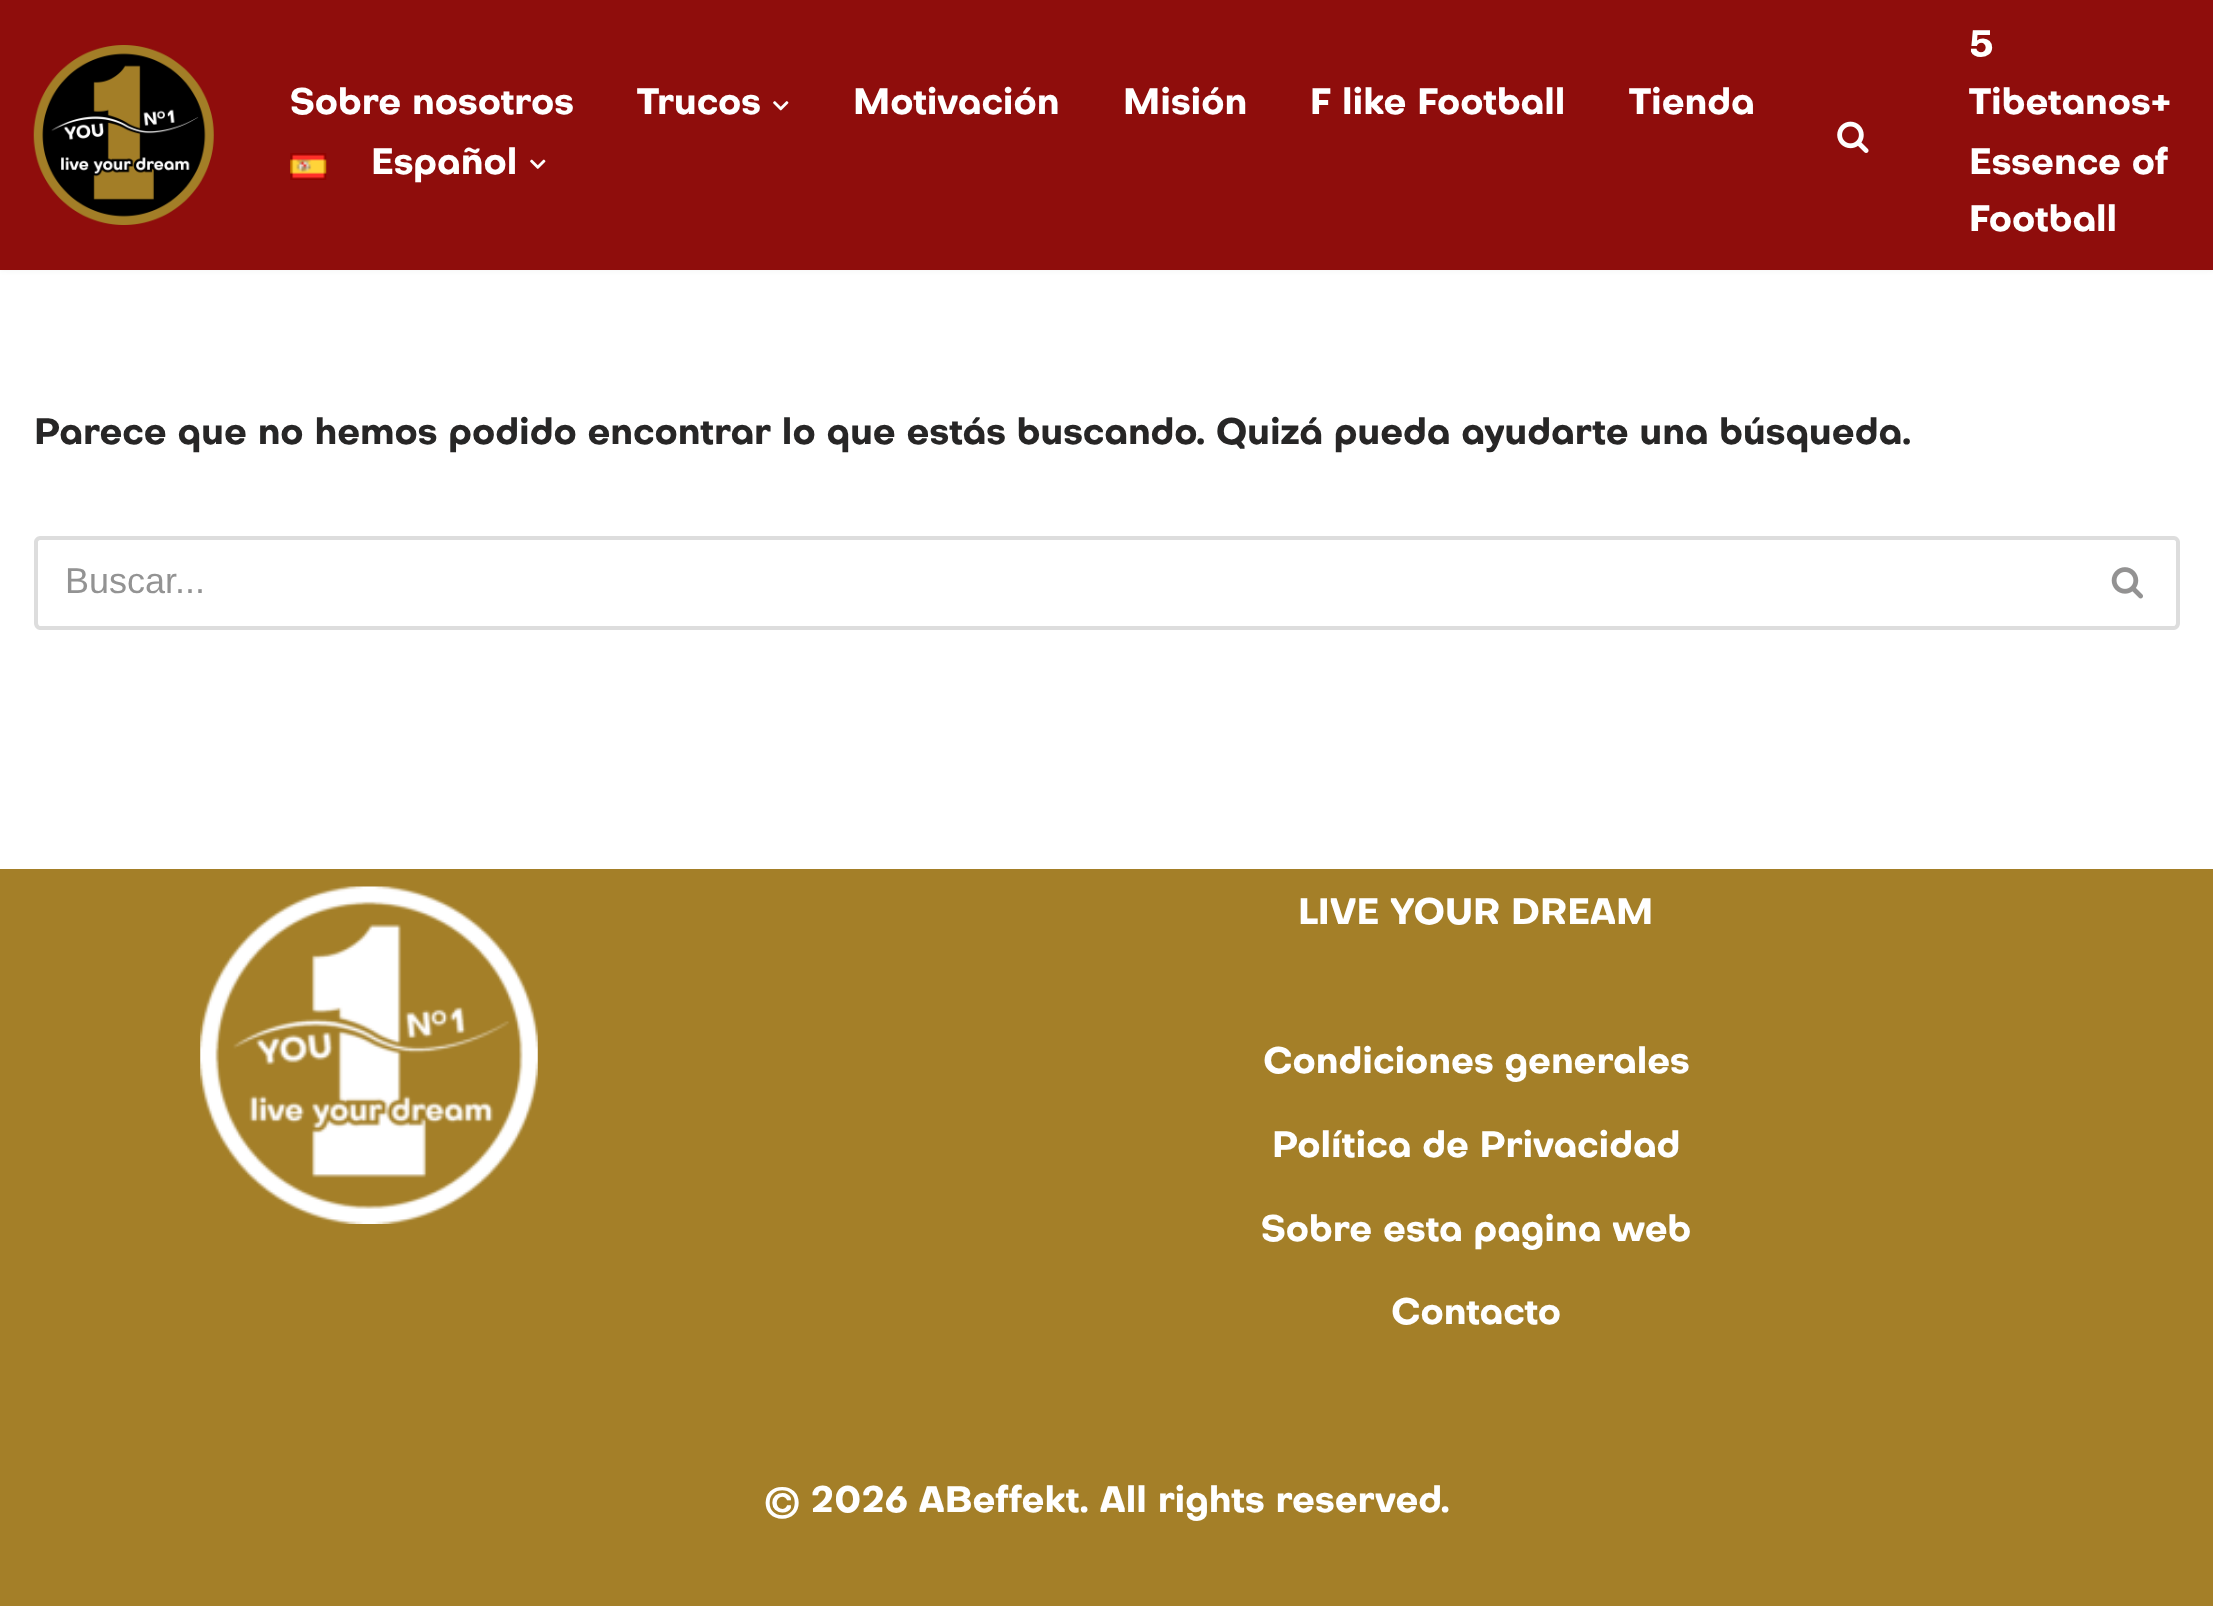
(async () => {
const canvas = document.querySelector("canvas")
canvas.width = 2213
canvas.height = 1606
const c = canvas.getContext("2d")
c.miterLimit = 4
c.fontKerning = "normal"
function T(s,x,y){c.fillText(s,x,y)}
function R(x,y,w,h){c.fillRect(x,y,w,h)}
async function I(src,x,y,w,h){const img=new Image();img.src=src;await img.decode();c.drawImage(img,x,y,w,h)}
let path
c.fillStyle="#fff"
R(0,0,2213,1606)
c.fillStyle="#0000001a"
c.filter="blur(3.5px)"
c.beginPath()
c.rect(0,-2,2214,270)
c.fill()
c.filter="none"
c.fillStyle="#8f0d0c"
R(0,0,2213,270)
await I("1.png",33,45,181,180)
c.font="bold 36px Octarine"
c.fillStyle="#fff"
T("Sobre nosotros",290,114)
T("Trucos",637,114)
await I("2.png",773,101,16,10)
T("Motivación",853,114)
T("Misión",1123,114)
T("F like Football",1310,114)
T("Tienda",1629,114)
await I("3.png",290,153,37,27)
T("Español",371,174)
await I("4.png",530,159,16,10)
await I("5.png",1837,121,32,32)
T("5",1969,56)
T("Tibetanos+",1969,114)
T("Essence of",1969,174)
T("Football",1969,231)
c.fillStyle="#272626"
T("Parece que no hemos podido encontrar lo que estás buscando. Quizá pueda ayudarte una búsqueda.",34,444)
c.fillStyle="#ddd"
path = new Path2D("M40 536h2039v94h-2039c-3 0-6-3-6-7v-81c0-3 3-6 6-6zm0 4h2039v86h-2039c-1 0-2-2-2-3v-81c0-1 1-2 2-2z")
c.fill(path,"evenodd")
c.font="36px Liberation Sans"
c.fillStyle="#939393"
T("Buscar...",65,593)
c.fillStyle="#ddd"
path = new Path2D("M2079 536h95c3 0 6 3 6 6v81c0 4-3 7-6 7h-95zm0 4h95c1 0 2 1 2 2v81c0 1-1 3-2 3h-95z")
c.fill(path,"evenodd")
await I("6.png",2111,567,32,32)
c.fillStyle="#a47f28"
R(0,869,2213,737)
await I("7.png",200,886,338,338)
c.font="bold 36px Octarine"
c.fillStyle="#fff"
T("LIVE YOUR DREAM",1298,924)
T("Condiciones generales",1263,1073)
T("Política de Privacidad",1272,1157)
T("Sobre esta pagina web",1261,1241)
T("Contacto",1391,1324)
T("© 2026 ABeffekt. All rights reserved.",764,1512)
})()
